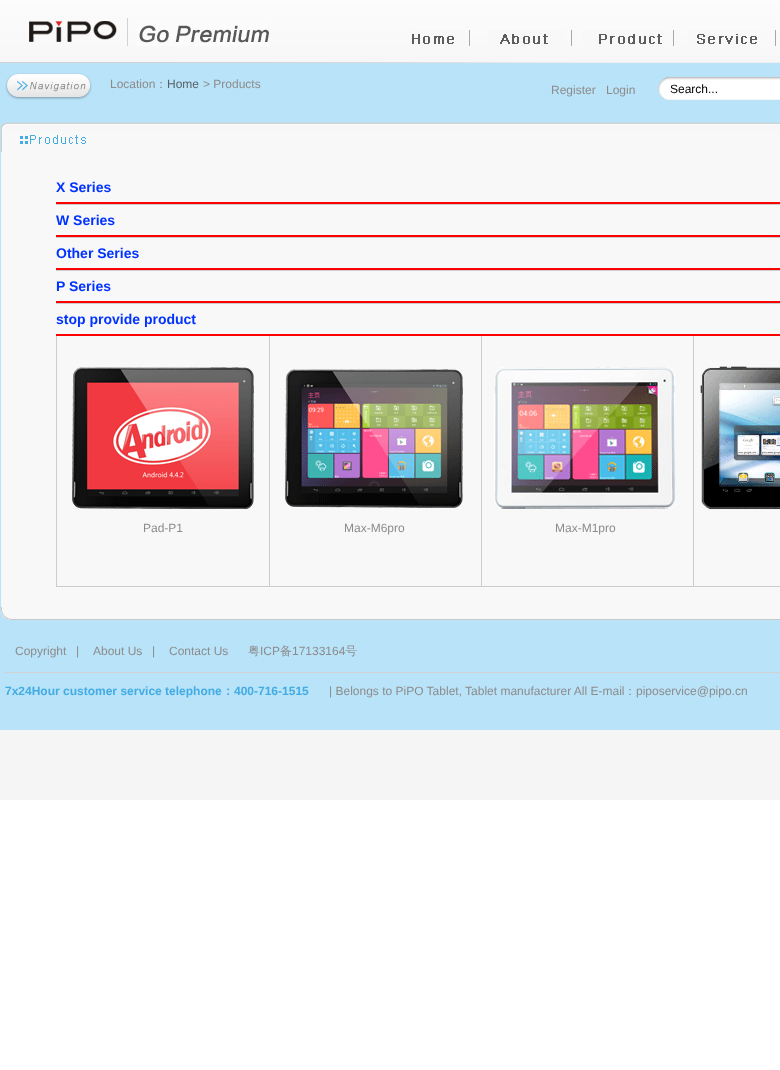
(async () => {
const canvas = document.querySelector("canvas")
canvas.width = 780
canvas.height = 1070
const c = canvas.getContext("2d")
c.miterLimit = 4
c.fontKerning = "normal"
function T(s,x,y){c.fillText(s,x,y)}
function R(x,y,w,h){c.fillRect(x,y,w,h)}
async function I(src,x,y,w,h){const img=new Image();img.src=src;await img.decode();c.drawImage(img,x,y,w,h)}
c.fillStyle="#fff"
R(0,0,780,1070)
await I("1.png",0,730,780,70)
c.fillStyle="#b9e3f9"
R(0,63,780,667)
await I("2.png",0,0,780,63)
await I("3.png",29,18,240,28)
await I("4.png",412,30,364,16)
await I("5.png",5,73,87,27)
c.font="12px Liberation Sans"
c.fillStyle="#8c8c8c"
T("Location",110,88)
c.font="500 12px WenQuanYi Zen Hei"
T("：",155,88)
c.font="12px Liberation Sans"
c.fillStyle="#576267"
T("Home",167,88)
c.fillStyle="#8c8c8c"
T("> Products",203,88)
T("Register",551,94)
T("Login",606,94)
await I("6.png",658,77,122,23)
c.fillStyle="#000"
T("Search...",670,93)
await I("7.png",0,122,780,30)
await I("8.png",20,135,66,9)
c.fillStyle="#f8f8f8"
R(1,152,779,455)
c.fillStyle="#f00"
R(56,202,724,2)
c.font="bold 14px Liberation Sans"
c.fillStyle="#03f"
T("X Series",56,192)
c.fillStyle="#ccc"
R(56,204,724,1)
c.fillStyle="#f00"
R(56,235,724,2)
c.fillStyle="#03f"
T("W Series",56,225)
c.fillStyle="#ccc"
R(56,237,724,1)
c.fillStyle="#f00"
R(56,268,724,2)
c.fillStyle="#03f"
T("Other Series",56,258)
c.fillStyle="#ccc"
R(56,270,724,1)
c.fillStyle="#f00"
R(56,301,724,2)
c.fillStyle="#03f"
T("P Series",56,291)
c.fillStyle="#ccc"
R(56,303,724,1)
c.fillStyle="#f00"
R(56,334,724,2)
c.fillStyle="#03f"
T("stop provide product",56,324)
await I("9.png",269,336,425,250)
c.fillStyle="#ccc"
R(56,586,724,1)
R(56,336,1,251)
await I("10.png",700,366,80,144)
await I("11.png",72,367,182,142)
c.font="12px Liberation Sans"
c.fillStyle="#8c8c8c"
T("Pad-P1",143,532)
await I("12.png",285,369,178,140)
T("Max-M6pro",344,532)
await I("13.png",494,367,181,142)
T("Max-M1pro",555,532)
await I("14.png",1,607,779,13)
c.fillStyle="#d2d2d2"
R(5,672,775,1)
c.fillStyle="#8c8c8c"
T("Copyright",15,655)
T("|",76,655)
T("About Us",93,655)
T("|",152,655)
T("Contact Us",169,655)
c.font="500 12px WenQuanYi Zen Hei"
T("粤",248,655)
c.font="12px Liberation Sans"
T("ICP",260,655)
c.font="500 12px WenQuanYi Zen Hei"
T("备",280,655)
c.font="12px Liberation Sans"
T("17133164",292,655)
c.font="500 12px WenQuanYi Zen Hei"
T("号",345,655)
c.font="bold 12px Liberation Sans"
c.fillStyle="#42ace3"
T("7x24Hour customer service telephone",5,695)
c.font="bold 12px WenQuanYi Zen Hei"
T("：",222,695)
c.font="bold 12px Liberation Sans"
T("400-716-1515",234,695)
c.font="12px Liberation Sans"
c.fillStyle="#8c8c8c"
T("| Belongs to PiPO Tablet, Tablet manufacturer All E-mail",329,695)
c.font="500 12px WenQuanYi Zen Hei"
T("：",624,695)
c.font="12px Liberation Sans"
T("piposervice@pipo.cn",636,695)
})()
